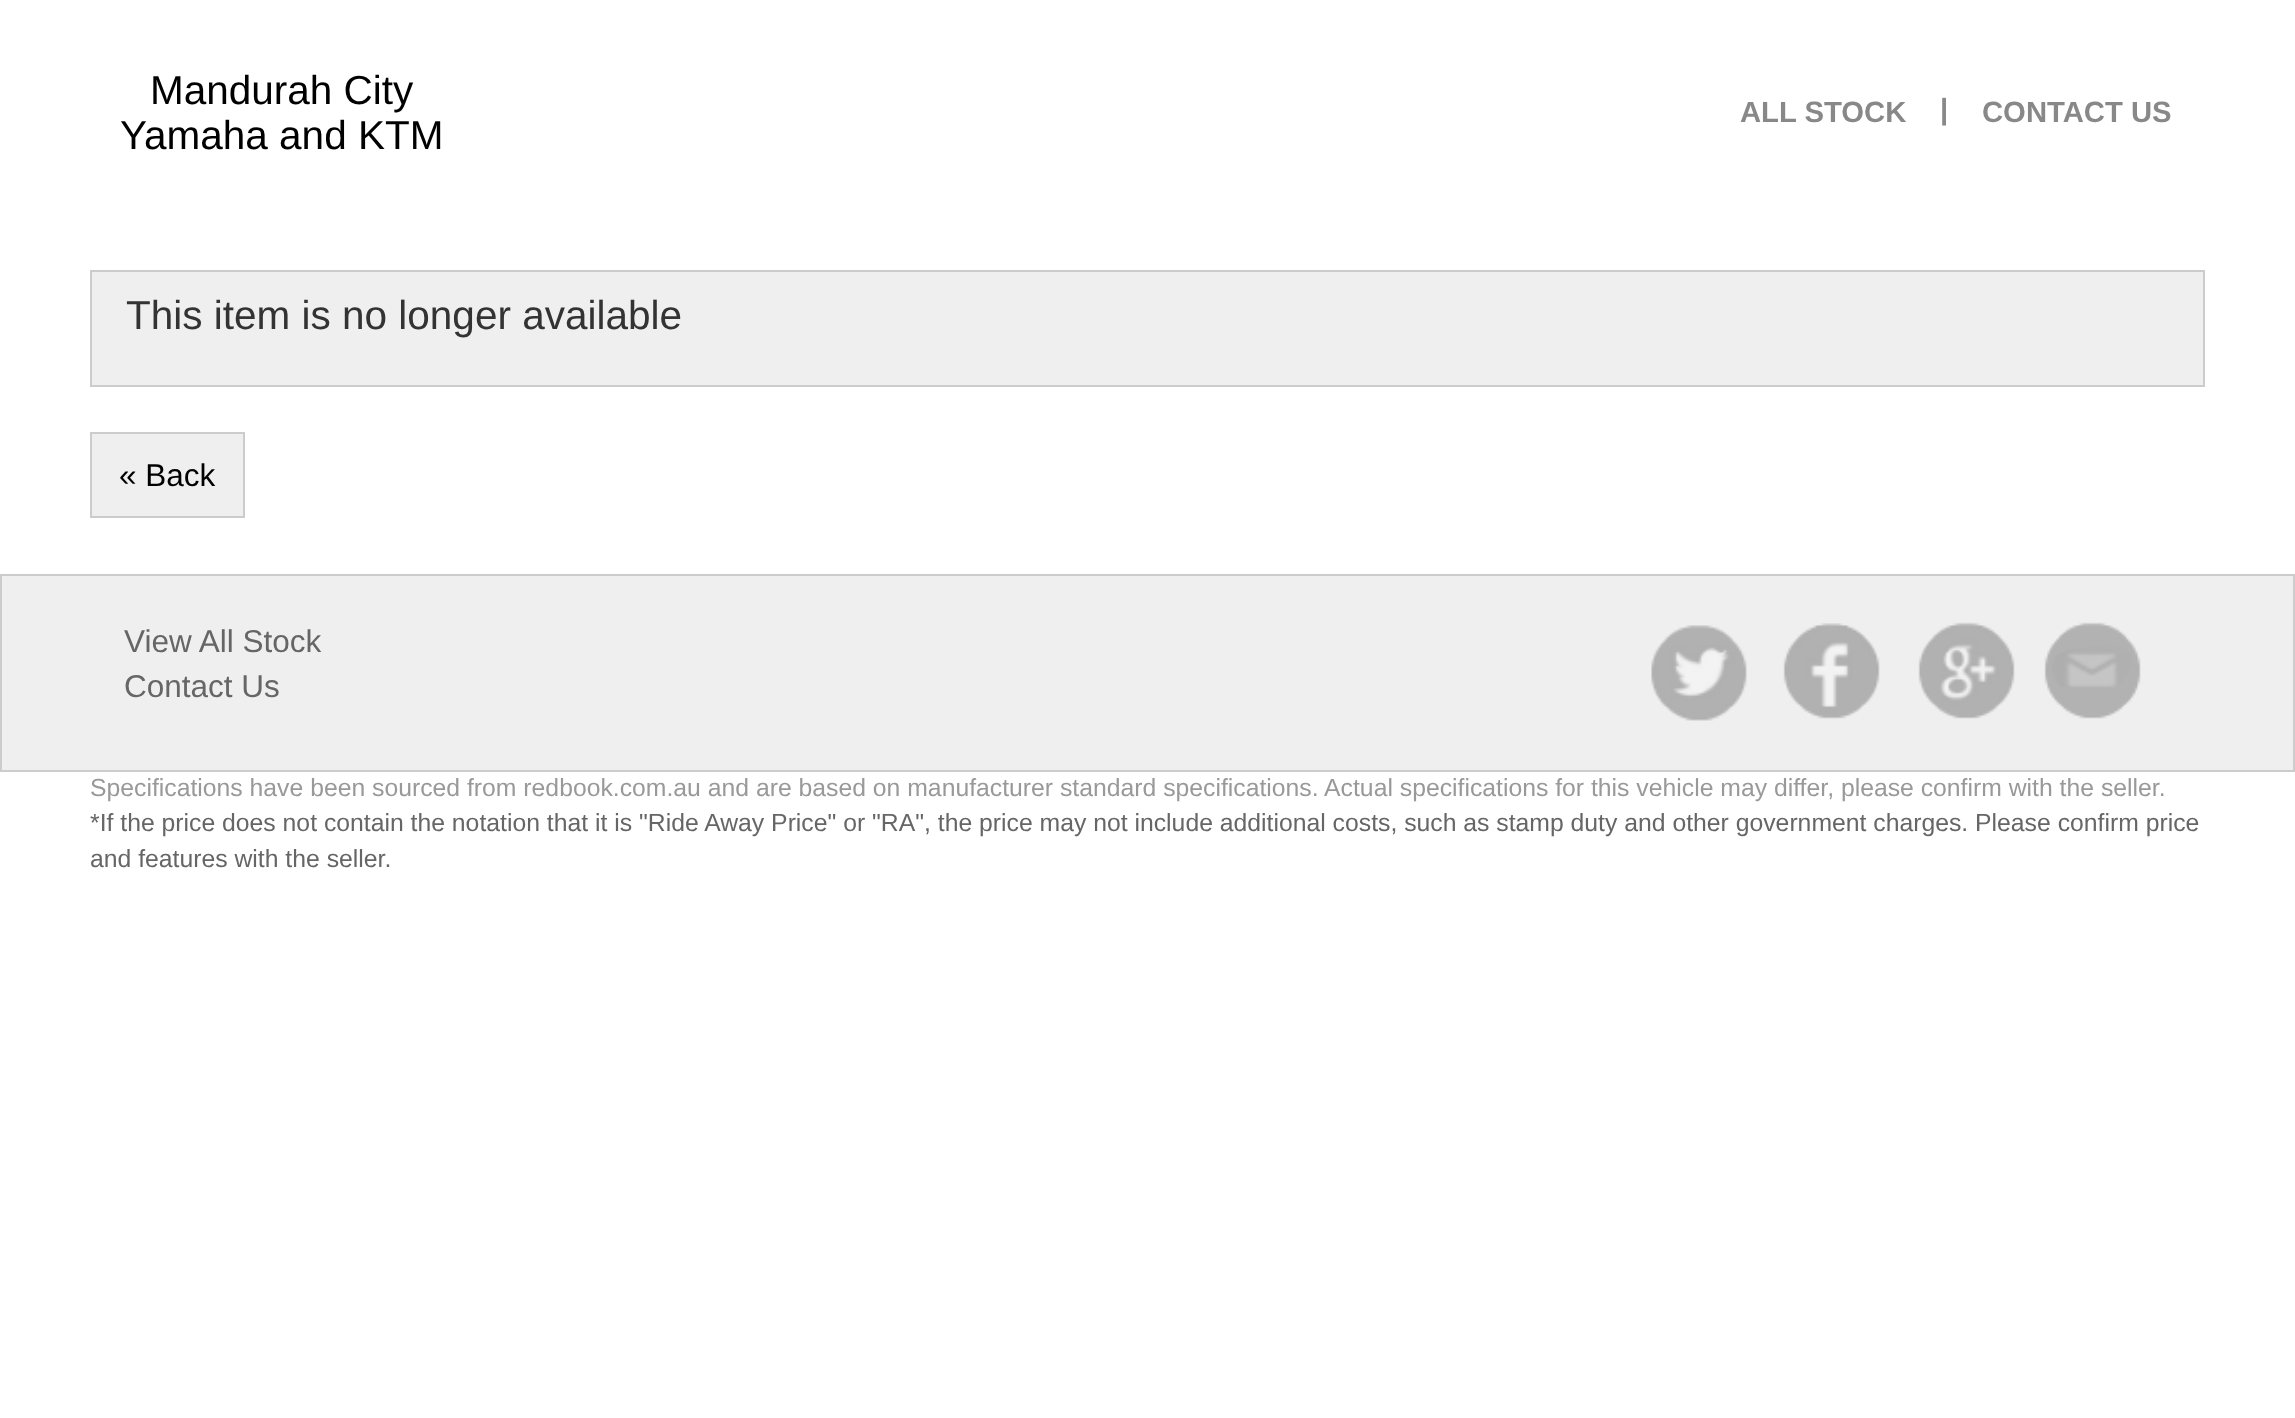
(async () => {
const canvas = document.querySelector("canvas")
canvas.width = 2295
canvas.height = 1418
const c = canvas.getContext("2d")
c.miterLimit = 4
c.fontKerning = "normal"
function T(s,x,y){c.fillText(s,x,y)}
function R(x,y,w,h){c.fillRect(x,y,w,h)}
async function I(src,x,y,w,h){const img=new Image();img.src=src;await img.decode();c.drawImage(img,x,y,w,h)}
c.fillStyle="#fff"
R(0,0,2295,1418)
c.font="40.5px Liberation Sans"
c.fillStyle="#000"
T("Mandurah City",150,104)
T("Yamaha and KTM",120,149)
c.font="bold 29.25px Liberation Sans"
c.fillStyle="#888"
T("ALL STOCK",1740,122)
T("|",1940,119)
T("CONTACT US",1982,122)
c.fillStyle="#efefef"
c.beginPath()
c.rect(91,271,2113,115)
c.fill()
c.strokeStyle="#ccc"
c.lineWidth=2
c.stroke()
c.font="40.5px Liberation Sans"
c.fillStyle="#333"
T("This item is no longer available",126,329)
c.fillStyle="#efefef"
c.beginPath()
c.rect(91,433,153,84)
c.fill()
c.stroke()
c.font="31.5px Liberation Sans"
c.fillStyle="#000"
T("« Back",119,486)
c.fillStyle="#efefef"
c.beginPath()
c.rect(1,575,2293,196)
c.fill()
c.stroke()
c.fillStyle="#666"
T("View All Stock",124,652)
T("Contact Us",124,697)
await I("1.png",1651,625,96,96)
await I("2.png",1783,623,97,96)
await I("3.png",1918,622,97,97)
await I("4.png",2044,622,97,97)
c.font="24.75px Liberation Sans"
c.fillStyle="#999"
T("Specifications have been sourced from redbook.com.au and are based on manufacturer standard specifications. Actual specifications for this vehicle may differ, please confirm with the seller.",90,796)
c.fillStyle="#666"
T("*If the price does not contain the notation that it is \"Ride Away Price\" or \"RA\", the price may not include additional costs, such as stamp duty and other government charges. Please confirm price",90,831)
T("and features with the seller.",90,867)
})()
